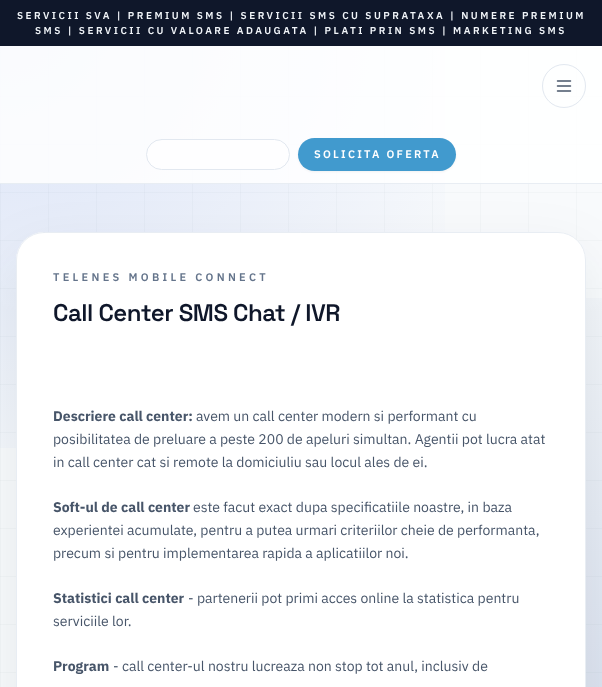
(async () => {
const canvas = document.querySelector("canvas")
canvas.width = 602
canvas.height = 687
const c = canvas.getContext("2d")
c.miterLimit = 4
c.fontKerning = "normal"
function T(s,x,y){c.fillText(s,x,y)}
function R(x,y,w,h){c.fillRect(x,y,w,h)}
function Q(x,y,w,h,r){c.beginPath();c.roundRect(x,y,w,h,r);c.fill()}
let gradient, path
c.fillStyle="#f8fafc"
R(0,0,602,687)
c.fillStyle="#f2f5f7"
R(576,46,1,194)
R(528,46,1,186)
R(480,46,1,186)
R(432,46,1,186)
R(384,46,1,186)
R(336,46,1,186)
R(288,46,1,186)
R(240,46,1,186)
R(192,46,1,186)
R(144,46,1,186)
R(96,46,1,186)
R(48,46,1,186)
R(0,46,1,641)
c.fillStyle="#0f172a"
R(0,0,602,46)
c.letterSpacing="2.5px"
c.font="600 10px IBM Plex Sans"
c.fillStyle="#f1f5f9"
T("SERVICII SVA | PREMIUM SMS | SERVICII SMS CU SUPRATAXA | NUMERE PREMIUM",17,19)
T("SMS | SERVICII CU VALOARE ADAUGATA | PLATI PRIN SMS | MARKETING SMS",35,34)
c.fillStyle="#f2f5f7"
R(0,336,602,1)
R(0,384,602,1)
R(0,432,602,1)
R(0,480,602,1)
R(0,528,602,1)
R(0,576,602,1)
R(0,624,602,1)
R(0,672,602,1)
gradient = c.createRadialGradient(602,687,0,602,687,913)
gradient.addColorStop(0,"#123a961f")
gradient.addColorStop(.52,"#123a9600")
c.fillStyle = gradient
R(586,298,16,389)
c.fillStyle="#f2f5f7"
R(0,48,602,1)
c.fillStyle="#edf0f2"
R(432,48,1,1)
R(384,48,1,1)
R(336,48,1,1)
R(288,48,1,1)
R(240,48,1,1)
R(192,48,1,1)
R(144,48,1,1)
R(96,48,1,1)
R(48,48,1,1)
R(0,48,1,1)
c.fillStyle="#f2f5f7"
R(0,96,602,1)
c.fillStyle="#edf0f2"
R(432,96,1,1)
R(384,96,1,1)
R(336,96,1,1)
R(288,96,1,1)
R(240,96,1,1)
R(192,96,1,1)
R(144,96,1,1)
R(96,96,1,1)
R(48,96,1,1)
R(0,96,1,1)
c.fillStyle="#f2f5f7"
R(0,144,602,1)
c.fillStyle="#edf0f2"
R(288,144,1,1)
R(144,144,1,1)
R(96,144,1,1)
R(48,144,1,1)
R(0,144,1,1)
c.fillStyle="#f2f5f7"
R(0,192,602,1)
c.fillStyle="#edf0f2"
R(432,192,1,1)
R(384,192,1,1)
R(336,192,1,1)
R(288,192,1,1)
R(240,192,1,1)
R(192,192,1,1)
R(144,192,1,1)
R(96,192,1,1)
R(48,192,1,1)
R(0,192,1,1)
c.fillStyle="#f2f5f7"
R(0,240,602,1)
c.fillStyle="#edf0f2"
R(0,240,1,1)
c.fillStyle="#f2f5f7"
R(0,288,602,1)
c.fillStyle="#edf0f2"
R(0,288,1,1)
R(0,336,1,1)
R(0,384,1,1)
R(0,432,1,1)
gradient = c.createRadialGradient(0,0,0,0,0,913)
gradient.addColorStop(0,"#1c4fd724")
gradient.addColorStop(.58,"#1c4fd700")
c.fillStyle = gradient
R(0,46,445,402)
c.fillStyle="#edf0f2"
R(576,48,1,1)
R(528,48,1,1)
R(480,48,1,1)
R(528,96,1,1)
R(480,96,1,1)
R(576,144,1,1)
R(528,144,1,1)
R(480,144,1,1)
R(576,192,1,1)
R(528,192,1,1)
R(480,192,1,1)
R(0,480,1,1)
R(0,528,1,1)
R(0,576,1,1)
R(0,624,1,1)
R(0,672,1,1)
c.fillStyle="#0f172a14"
c.filter="blur(30px)"
c.beginPath()
c.roundRect(16,256,570,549,28)
c.fill()
c.filter="none"
c.fillStyle="#ffffffd9"
R(0,46,602,138)
c.fillStyle="#e2e8f0cc"
R(0,183,602,1)
c.beginPath()
c.arc(564,86,21.5,0,7)
c.strokeStyle="#e2e8f0"
c.stroke()
path = new Path2D("M557.5 81h13m-13 5h13m-13 5h13")
c.strokeStyle="#475569"
c.lineWidth=1.5
c.lineCap="round"
c.lineJoin="round"
c.stroke(path)
c.fillStyle="#fefeff"
c.beginPath()
c.roundRect(146.5,139.5,143,30,15)
c.fill()
c.strokeStyle="#e2e8f0"
c.lineWidth=1
c.lineJoin="miter"
c.stroke()
c.fillStyle="#0000000d"
c.filter="blur(1px)"
c.beginPath()
c.roundRect(298,139,158,33,16.5)
c.fill()
c.filter="none"
c.fillStyle="#419ace"
Q(298,138,158,33,16.5)
c.letterSpacing="2.25px"
c.font="600 11px IBM Plex Sans"
c.fillStyle="#fff"
T("SOLICITA OFERTA",314,158)
Q(16,232,570,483,28)
c.beginPath()
c.roundRect(16.5,232.5,569,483,27.5)
c.strokeStyle="#e2e8f0cc"
c.stroke()
c.letterSpacing="3.3px"
c.fillStyle="#64748b"
T("TELENES MOBILE CONNECT",53,281)
c.letterSpacing="-0.5px"
c.font="600 24px Space Grotesk"
c.fillStyle="#0f172a"
T("Call Center SMS Chat / IVR",53,321)
c.letterSpacing="0px"
c.font="bold 14px IBM Plex Sans"
c.fillStyle="#475569"
T("Descriere call center:",53,421)
c.font="14px IBM Plex Sans"
T("avem un call center modern si performant cu",196,421)
T("posibilitatea de preluare a peste 200 de apeluri simultan. Agentii pot lucra atat",53,444)
T("in call center cat si remote la domiciuliu sau locul ales de ei.",53,467)
c.font="bold 14px IBM Plex Sans"
T("Soft-ul de call center",53,512)
c.font="14px IBM Plex Sans"
T("este facut exact dupa specificatiile noastre, in baza",193,512)
T("experientei acumulate, pentru a putea urmari criteriilor cheie de performanta,",53,535)
T("precum si pentru implementarea rapida a aplicatiilor noi.",53,558)
c.font="bold 14px IBM Plex Sans"
T("Statistici call center",53,603)
c.font="14px IBM Plex Sans"
T("- partenerii pot primi acces online la statistica pentru",188,603)
T("serviciile lor.",53,626)
c.font="bold 14px IBM Plex Sans"
T("Program",53,671)
c.font="14px IBM Plex Sans"
T("- call center-ul nostru lucreaza non stop tot anul, inclusiv de",113,671)
})()
